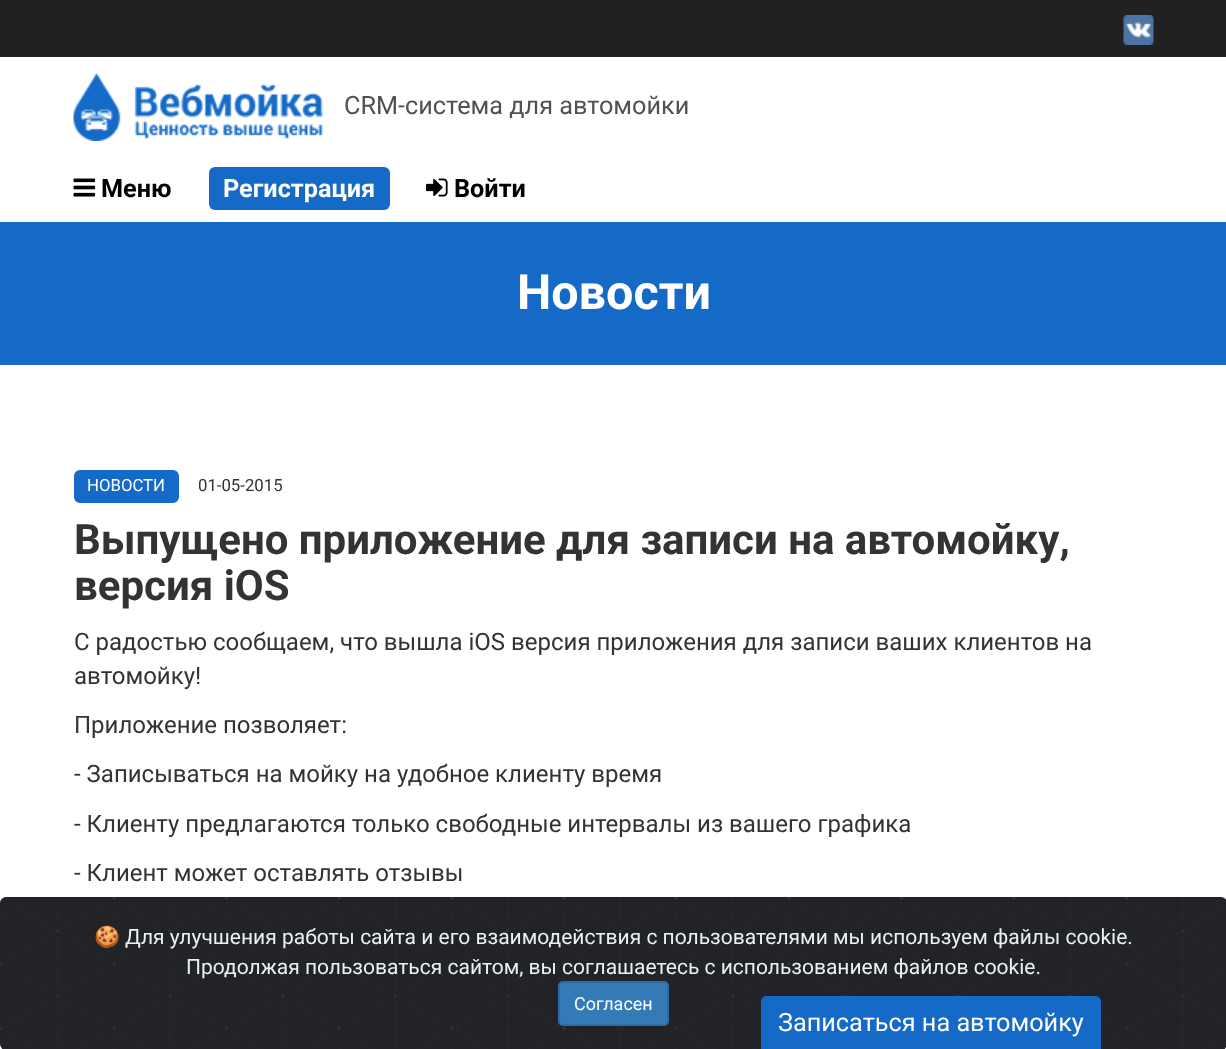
(async () => {
const canvas = document.querySelector("canvas")
canvas.width = 1226
canvas.height = 1049
const c = canvas.getContext("2d")
c.miterLimit = 4
c.fontKerning = "normal"
function T(s,x,y){c.fillText(s,x,y)}
function R(x,y,w,h){c.fillRect(x,y,w,h)}
function Q(x,y,w,h,r){c.beginPath();c.roundRect(x,y,w,h,r);c.fill()}
async function I(src,x,y,w,h){const img=new Image();img.src=src;await img.decode();c.drawImage(img,x,y,w,h)}
let path
c.fillStyle="#fff"
R(0,0,1226,1049)
c.fillStyle="#212121"
R(0,0,1226,57)
await I("1.png",1123,15,31,30)
await I("2.png",73,73,250,68)
c.font="25.25px Roboto"
c.fillStyle="#515151"
T("CRM-система для автомойки",344,114)
await I("3.png",73,178,23,19)
c.font="bold 25.25px Roboto"
c.fillStyle="#000"
T("Меню",101,197)
c.fillStyle="#156ac8"
Q(209,167,181,43,6)
c.fillStyle="#fff"
T("Регистрация",223,197)
await I("4.png",426,178,22,19)
c.fillStyle="#000"
T("Войти",454,197)
c.fillStyle="#156ac8"
R(0,222,1226,143)
c.font="bold 48.5px Roboto"
c.fillStyle="#fff"
T("Новости",517,309)
c.fillStyle="#156ac8"
c.beginPath()
c.roundRect(75,471,103,31,5)
c.fill()
c.strokeStyle="#156ac8"
c.lineWidth=2
c.stroke()
c.font="16.75px Roboto"
c.fillStyle="#fff"
T("НОВОСТИ",87,491)
c.fillStyle="#333"
T("01-05-2015",198,491)
c.font="bold 42px Roboto"
T("Выпущено приложение для записи на автомойку,",74,554)
T("версия iOS",74,600)
c.font="24px Roboto"
T("С радостью сообщаем, что вышла iOS версия приложения для записи ваших клиентов на",74,650)
T("автомойку!",74,684)
T("Приложение позволяет:",74,733)
T("- Записываться на мойку на удобное клиенту время",74,782)
T("- Клиенту предлагаются только свободные интервалы из вашего графика",74,832)
T("- Клиент может оставлять отзывы",74,881)
await I("5.png",0,897,1226,152)
c.font="21px Noto Color Emoji"
c.fillStyle="#ecf0f1"
T("🍪",94,944)
c.font="21px Roboto"
T("Для улучшения работы сайта и его взаимодействия с пользователями мы используем файлы cookie.",125,944)
T("Продолжая пользоваться сайтом, вы соглашаетесь с использованием файлов cookie.",186,974)
c.fillStyle="#337ab7"
c.beginPath()
c.roundRect(559,982,109,43,4)
c.fill()
c.strokeStyle="#2e6da4"
c.stroke()
c.font="18px Roboto"
c.fillStyle="#fff"
T("Согласен",574,1010)
c.fillStyle="#156ac8"
path = new Path2D("M767 996h328c3.5 0 6 2.5 6 6v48h-340v-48c0-3.5 2.5-6 6-6z")
c.fill(path)
c.font="25.25px Roboto"
c.fillStyle="#fff"
T("Записаться на автомойку",778,1031)
})()
